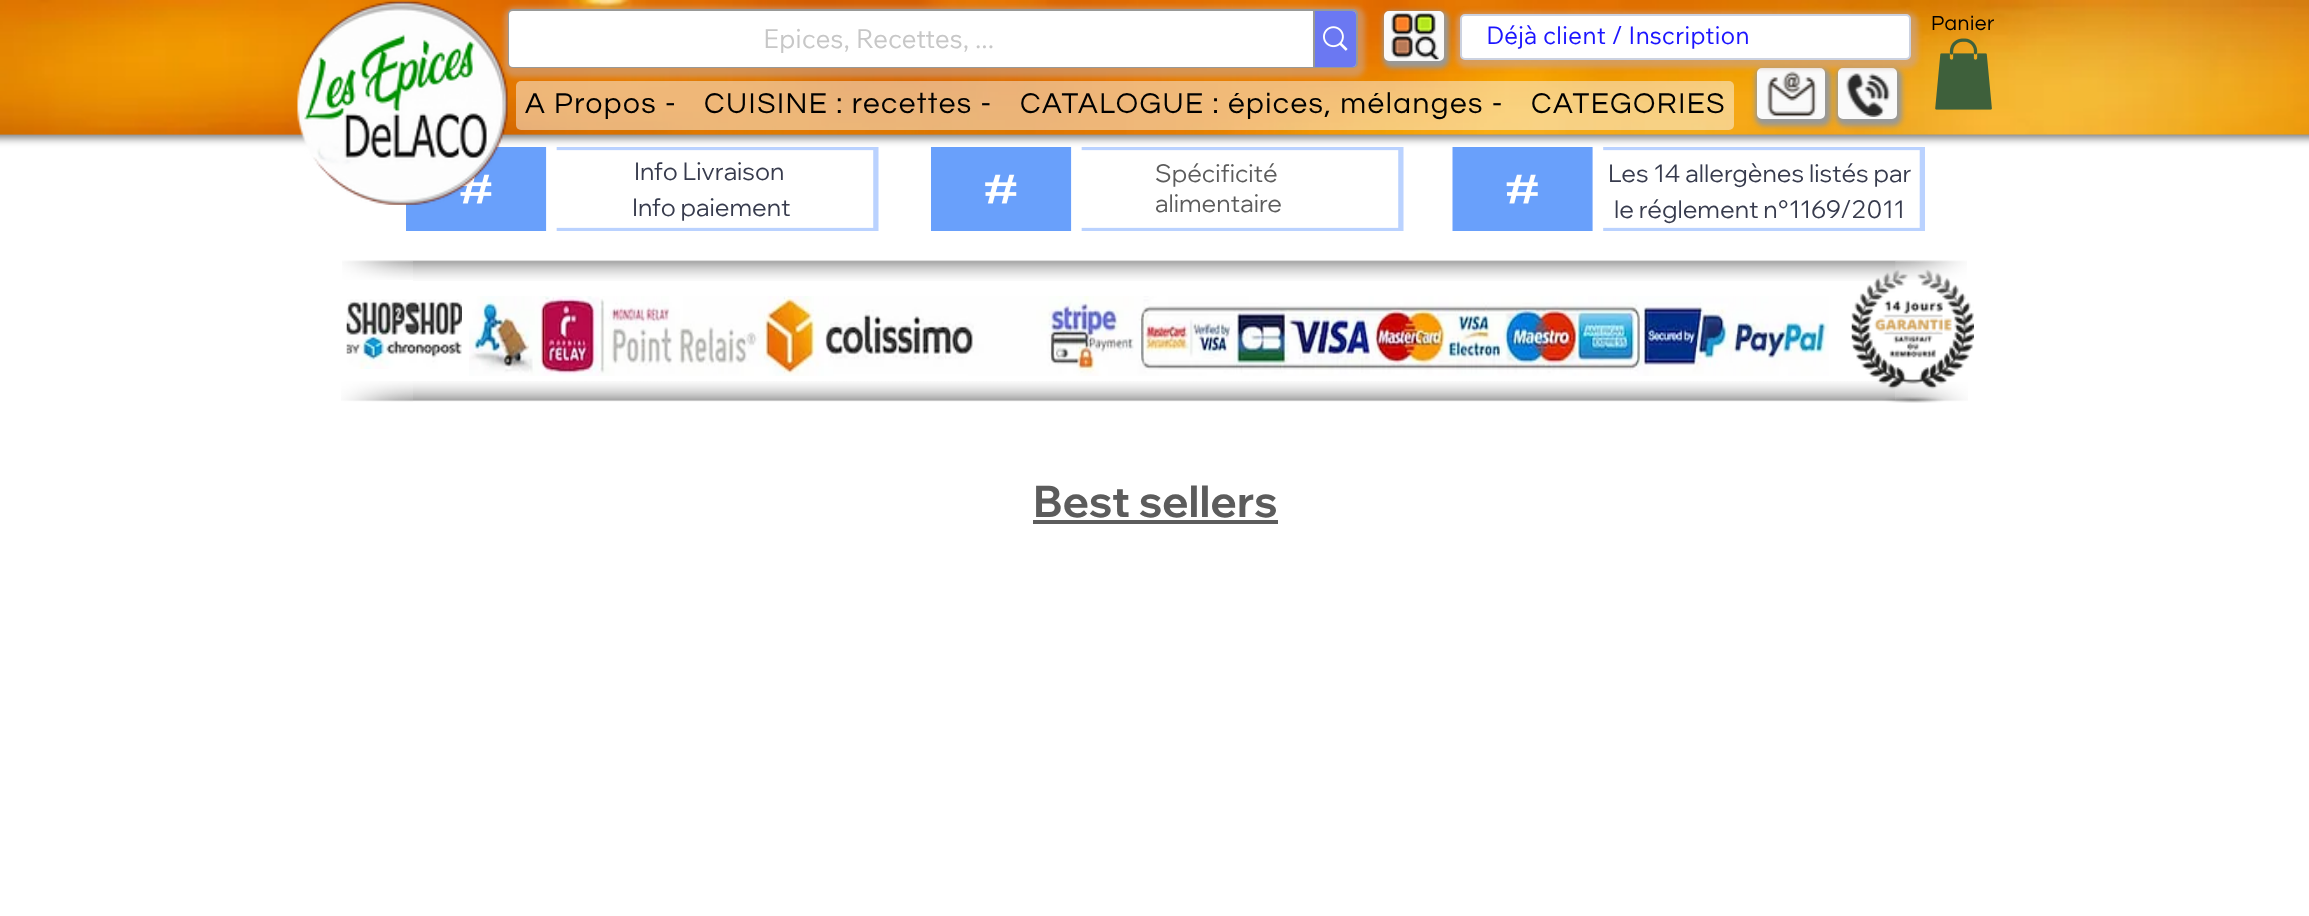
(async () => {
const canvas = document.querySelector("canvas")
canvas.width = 2309
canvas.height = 916
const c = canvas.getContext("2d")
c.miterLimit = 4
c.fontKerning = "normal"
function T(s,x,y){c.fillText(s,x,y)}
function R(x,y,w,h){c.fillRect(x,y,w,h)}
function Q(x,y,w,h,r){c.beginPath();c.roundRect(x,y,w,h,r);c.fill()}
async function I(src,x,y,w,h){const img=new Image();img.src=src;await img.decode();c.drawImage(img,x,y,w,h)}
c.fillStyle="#fff"
R(0,0,2309,916)
c.font="24.5px Wix Madefor Display"
c.fillStyle="#373b4d"
T("Info Livraison",634,180)
T("Info paiement",632,216)
await I("8.png",406,147,473,84)
c.fillStyle="#5c5c5c"
T("Spécificité",1155,182)
T("alimentaire",1155,212)
await I("9.png",931,147,473,84)
c.fillStyle="#373b4d"
T("Les 14 allergènes listés par",1608,182)
T("le réglement n°1169/2011",1614,218)
await I("10.png",1452,147,473,84)
c.fillStyle="#00000087"
c.filter="blur(4.5px)"
c.beginPath()
c.roundRect(-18,4,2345,134,4)
c.fill()
c.filter="none"
await I("1.png",0,0,2309,135)
c.fillStyle="#caa5938f"
c.filter="blur(2.5px)"
c.beginPath()
c.roundRect(504,7,861,70,11)
c.fill()
c.filter="none"
await I("2.png",297,1,211,204)
c.fillStyle="#999997"
c.filter="blur(2.5px)"
c.beginPath()
c.roundRect(1383,11,66,57,9)
c.fill()
c.filter="none"
c.fillStyle="#fafafa"
c.beginPath()
c.roundRect(1385,12,58,48,4)
c.fill()
c.strokeStyle="#fafafa"
c.lineWidth=2
c.stroke()
await I("3.png",1391,12,48,48)
c.letterSpacing="0.5px"
c.font="21px Questrial"
c.fillStyle="#000"
T("Panier",1931,30)
c.beginPath()
c.roundRect(509,10,848,57,4)
c.strokeStyle="#999997"
c.stroke()
c.fillStyle="#fff"
Q(509,11,847,56,4)
c.letterSpacing="0px"
c.font="26.25px Wix Madefor Text"
c.fillStyle="#c7c7c7"
T("Epices, Recettes, ...",763,48)
c.fillStyle="#081eea99"
c.beginPath()
c.roundRect(1313,11,43,56,[0,4,4,0])
c.fill()
c.fillStyle="#999997"
R(1313,11,2,56)
await I("4.png",1323,26,25,25)
c.filter="blur(2.5px)"
c.beginPath()
c.roundRect(1755,68,76,58,9)
c.fill()
c.filter="none"
c.fillStyle="#fafafa"
c.beginPath()
c.roundRect(1758,69,66,49,4)
c.fill()
c.strokeStyle="#fafafa"
c.stroke()
await I("5.png",1767,71,50,46)
c.fillStyle="#999997"
c.filter="blur(2.5px)"
c.beginPath()
c.roundRect(1836,68,66,58,9)
c.fill()
c.filter="none"
c.fillStyle="#fafafa"
c.beginPath()
c.roundRect(1839,69,57,49,4)
c.fill()
c.stroke()
await I("6.png",1846,73,45,44)
c.fillStyle="#caa59399"
c.filter="blur(2.5px)"
c.beginPath()
c.roundRect(1456,12,462,56,11)
c.fill()
c.filter="none"
c.fillStyle="#fff"
c.beginPath()
c.roundRect(1461,15,449,44,4)
c.fill()
c.strokeStyle="#ccd2e0"
c.stroke()
c.font="24.5px Wix Madefor Text"
c.fillStyle="#1c15ff"
T("Déjà client / Inscription",1486,44)
await I("7.png",1935,38,57,72)
c.fillStyle="#fafafa7a"
Q(516,81,1218,49,5)
c.letterSpacing="1.5px"
c.font="29.75px Questrial"
c.fillStyle="#000"
T("A Propos -",525,113)
T("CUISINE : recettes -",704,113)
T("CATALOGUE : épices, mélanges -",1020,113)
T("CATEGORIES",1531,113)
await I("11.png",413,260,1483,21)
await I("12.png",342,260,71,20)
await I("13.png",1895,260,72,20)
await I("14.png",346,299,116,70)
await I("15.png",469,296,1360,80)
await I("16.png",1851,269,123,134)
await I("17.png",413,381,1483,21)
await I("18.png",341,381,72,21)
await I("19.png",1895,382,73,20)
c.letterSpacing="0px"
c.font="bold 43.75px Wix Madefor Display"
c.fillStyle="#5c5c5c"
T("Best sellers",1033,517)
R(1033,520,245,4)
})()
